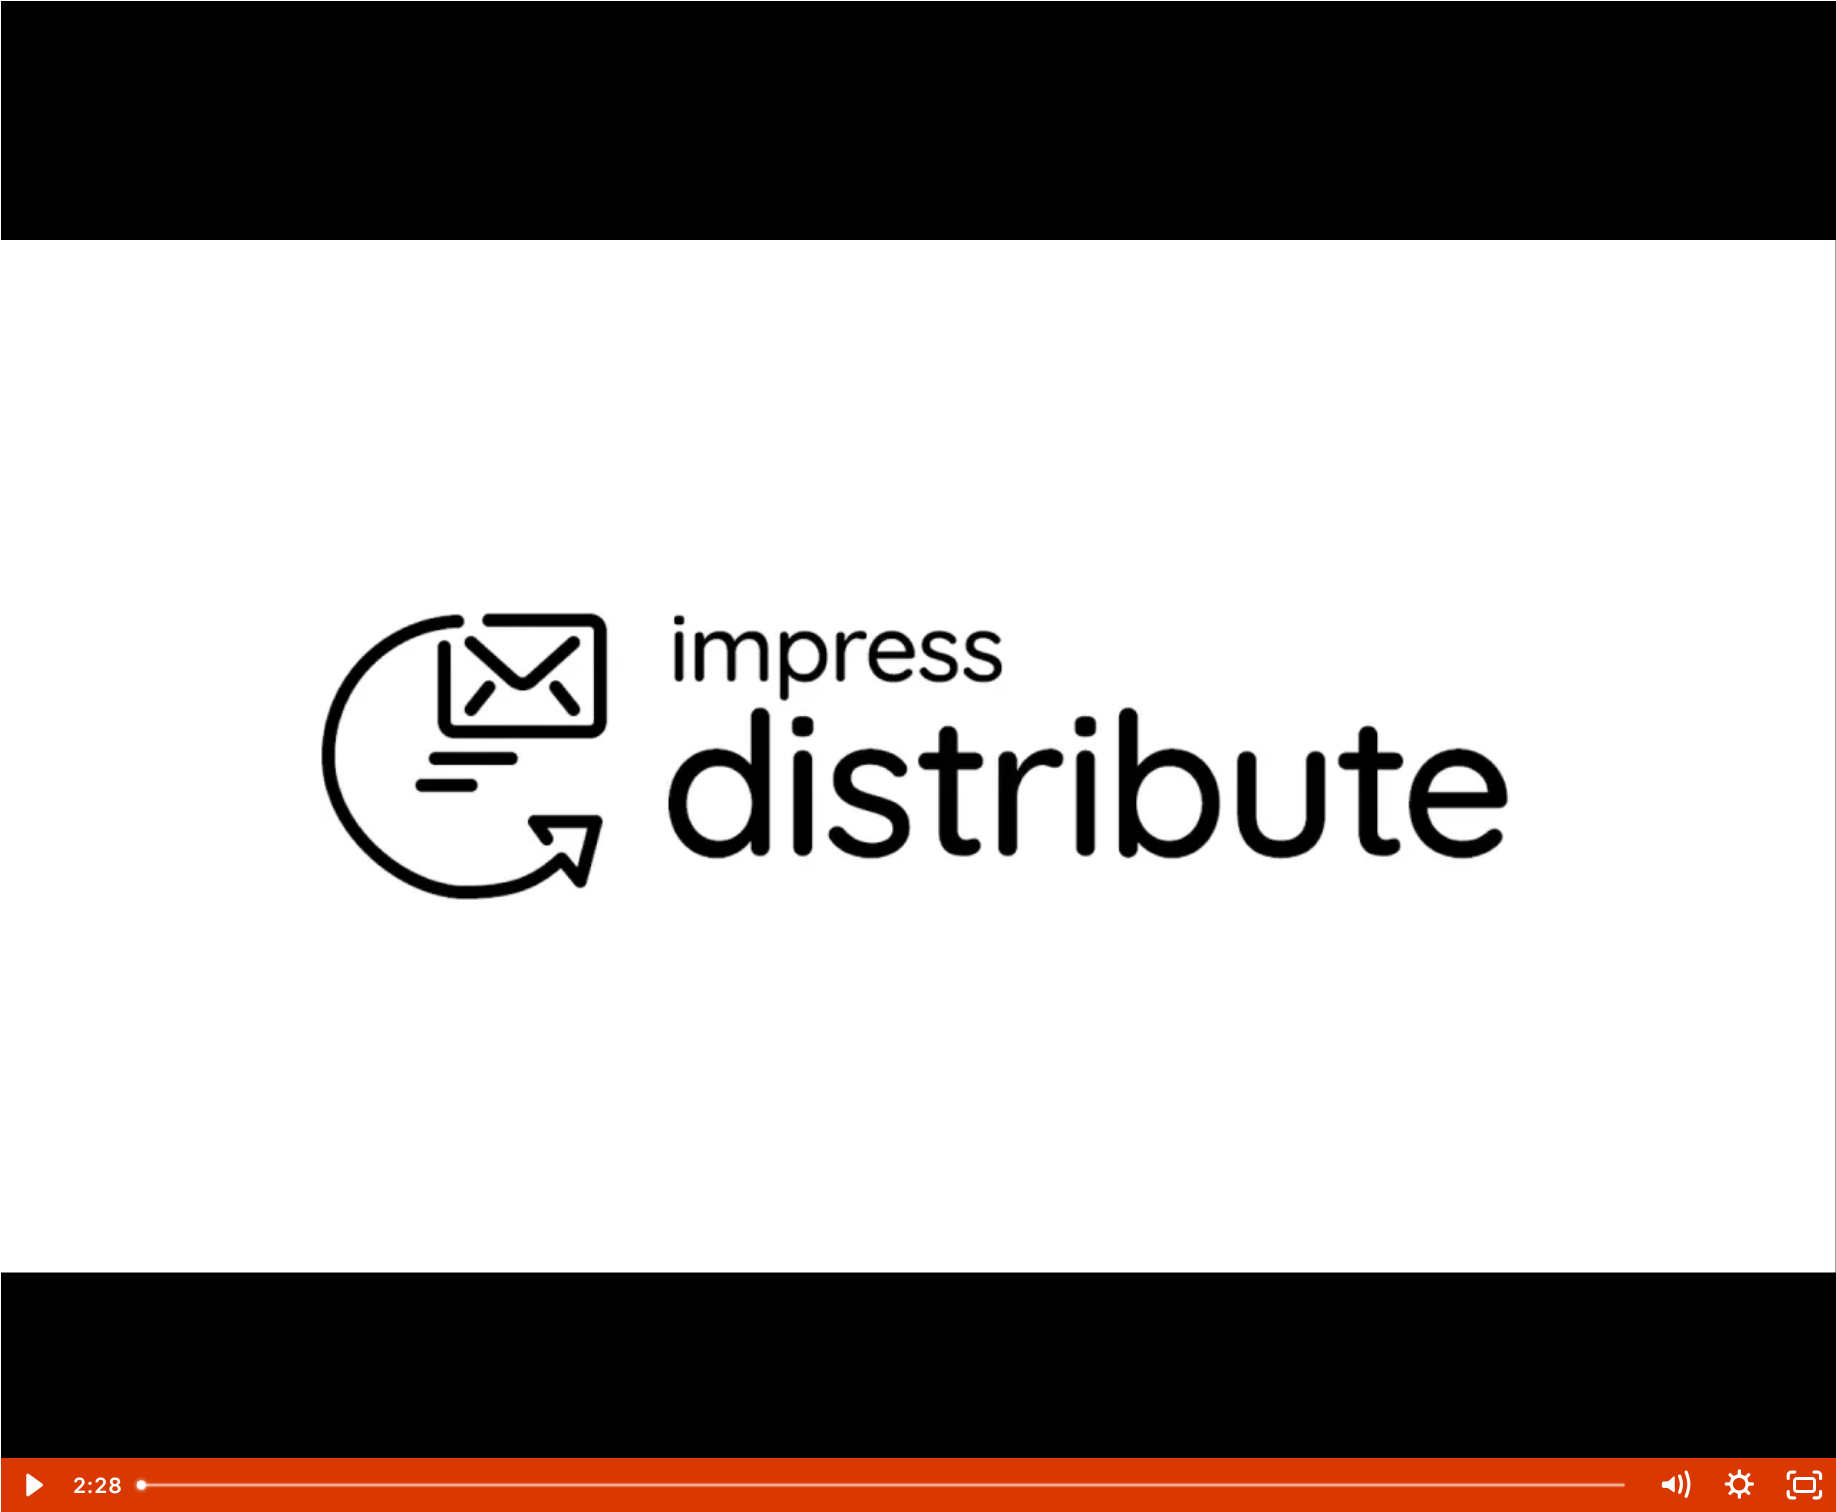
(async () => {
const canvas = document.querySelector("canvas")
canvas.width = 1836
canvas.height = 1512
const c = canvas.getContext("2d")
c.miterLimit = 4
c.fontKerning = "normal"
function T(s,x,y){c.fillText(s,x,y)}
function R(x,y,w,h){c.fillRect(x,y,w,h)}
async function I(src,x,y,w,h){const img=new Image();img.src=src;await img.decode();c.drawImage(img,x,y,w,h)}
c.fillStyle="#fff"
R(0,0,1836,1512)
c.fillStyle="#000"
R(1,1,1835,1457)
await I("1.png",1,240,1835,1033)
c.fillStyle="#d93800"
R(1,1458,1835,54)
await I("2.png",26,1473,17,24)
c.letterSpacing="1px"
c.font="600 21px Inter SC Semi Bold"
c.fillStyle="#fff"
T("2:28",73,1493)
await I("3.png",133,1476,1493,18)
await I("4.png",1661,1470,30,28)
await I("5.png",1724,1469,30,30)
await I("6.png",1786,1470,37,30)
})()
